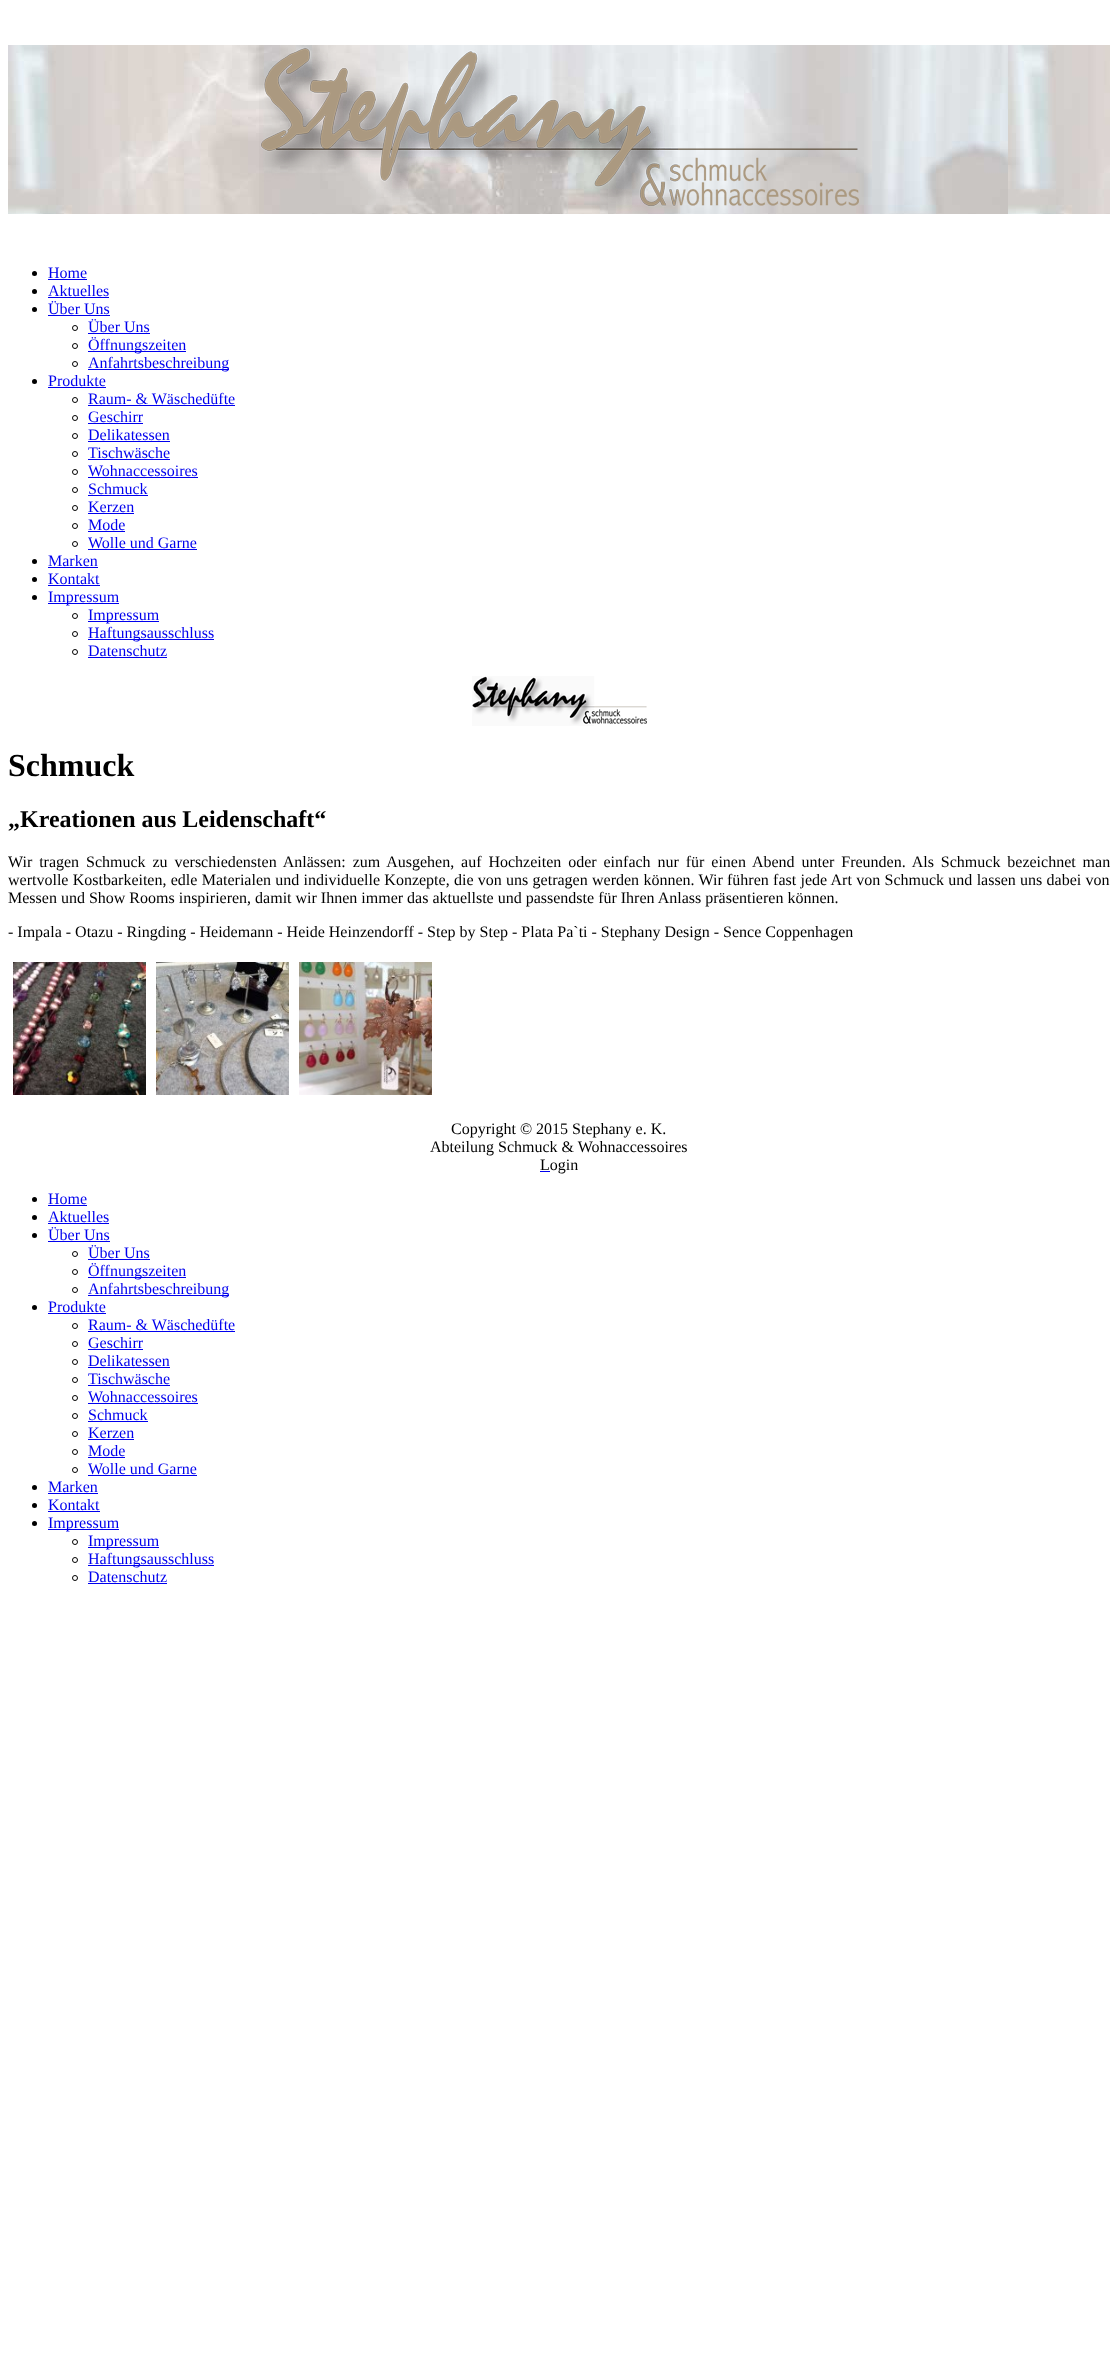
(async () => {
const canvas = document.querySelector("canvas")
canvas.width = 1118
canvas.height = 2354
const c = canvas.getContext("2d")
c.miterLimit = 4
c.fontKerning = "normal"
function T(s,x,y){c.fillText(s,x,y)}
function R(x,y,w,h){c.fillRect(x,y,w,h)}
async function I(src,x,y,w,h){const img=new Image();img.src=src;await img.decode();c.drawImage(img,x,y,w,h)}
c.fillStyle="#fff"
R(0,0,1118,2354)
await I("1.png",8,45,1102,169)
await I("2.png",259,45,600,169)
c.fillStyle="#000"
c.beginPath()
c.arc(34.5,273.5,2.5,0,7)
c.fill()
c.font="16px Liberation Serif"
c.fillStyle="#00e"
T("Home",48,278)
R(48,279,39,1)
c.fillStyle="#000"
c.beginPath()
c.arc(34.5,291.5,2.5,0,7)
c.fill()
c.fillStyle="#00e"
T("Aktuelles",48,296)
R(48,297,61,1)
c.fillStyle="#000"
c.beginPath()
c.arc(34.5,309.5,2.5,0,7)
c.fill()
c.fillStyle="#00e"
T("Über Uns",48,314)
R(48,315,62,1)
c.beginPath()
c.arc(75,328,2.5,0,7)
c.strokeStyle="#000"
c.stroke()
T("Über Uns",88,332)
R(88,333,62,1)
c.beginPath()
c.arc(75,346,2.5,0,7)
c.stroke()
R(88,351,98,1)
T("Öffnungszeiten",88,350)
c.beginPath()
c.arc(75,364,2.5,0,7)
c.stroke()
R(88,369,141,1)
T("Anfahrtsbeschreibung",88,368)
c.fillStyle="#000"
c.beginPath()
c.arc(34.5,381.5,2.5,0,7)
c.fill()
c.fillStyle="#00e"
T("Produkte",48,386)
R(48,387,58,1)
c.beginPath()
c.arc(75,400,2.5,0,7)
c.stroke()
T("Raum- & Wäschedüfte",88,404)
R(88,405,147,1)
c.beginPath()
c.arc(75,418,2.5,0,7)
c.stroke()
T("Geschirr",88,422)
R(88,423,55,1)
c.beginPath()
c.arc(75,436,2.5,0,7)
c.stroke()
T("Delikatessen",88,440)
R(88,441,82,1)
c.beginPath()
c.arc(75,454,2.5,0,7)
c.stroke()
T("Tischwäsche",88,458)
R(88,459,82,1)
c.beginPath()
c.arc(75,472,2.5,0,7)
c.stroke()
T("Wohnaccessoires",88,476)
R(88,477,110,1)
c.beginPath()
c.arc(75,490,2.5,0,7)
c.stroke()
T("Schmuck",88,494)
R(88,495,60,1)
c.beginPath()
c.arc(75,508,2.5,0,7)
c.stroke()
T("Kerzen",88,512)
R(88,513,46,1)
c.beginPath()
c.arc(75,526,2.5,0,7)
c.stroke()
T("Mode",88,530)
R(88,531,37,1)
c.beginPath()
c.arc(75,544,2.5,0,7)
c.stroke()
T("Wolle und Garne",88,548)
R(88,549,109,1)
c.fillStyle="#000"
c.beginPath()
c.arc(34.5,561.5,2.5,0,7)
c.fill()
c.fillStyle="#00e"
T("Marken",48,566)
R(48,567,50,1)
c.fillStyle="#000"
c.beginPath()
c.arc(34.5,579.5,2.5,0,7)
c.fill()
c.fillStyle="#00e"
T("Kontakt",48,584)
R(48,585,52,1)
c.fillStyle="#000"
c.beginPath()
c.arc(34.5,597.5,2.5,0,7)
c.fill()
c.fillStyle="#00e"
R(48,603,71,1)
T("Impressum",48,602)
c.beginPath()
c.arc(75,616,2.5,0,7)
c.stroke()
R(88,621,71,1)
T("Impressum",88,620)
c.beginPath()
c.arc(75,634,2.5,0,7)
c.stroke()
R(88,639,126,1)
T("Haftungsausschluss",88,638)
c.beginPath()
c.arc(75,652,2.5,0,7)
c.stroke()
T("Datenschutz",88,656)
R(88,657,79,1)
await I("3.png",472,676,175,50)
c.font="bold 32px Liberation Serif"
c.fillStyle="#000"
T("Schmuck",8,776)
c.font="bold 24px Liberation Serif"
T("„Kreationen aus Leidenschaft“",8,827)
c.wordSpacing="2.9px"
c.font="16px Liberation Serif"
T("Wir tragen Schmuck zu verschiedensten Anlässen: zum Ausgehen, auf Hochzeiten oder einfach nur für einen Abend unter Freunden. Als Schmuck bezeichnet man",8,867)
c.wordSpacing="0.3px"
T("wertvolle Kostbarkeiten, edle Materialen und individuelle Konzepte, die von uns getragen werden können. Wir führen fast jede Art von Schmuck und lassen uns dabei von",8,885)
c.wordSpacing="0px"
T("Messen und Show Rooms inspirieren, damit wir Ihnen immer das aktuellste und passendste für Ihren Anlass präsentieren können.",8,903)
T("- Impala - Otazu - Ringding - Heidemann - Heide Heinzendorff - Step by Step - Plata Pa`ti - Stephany Design - Sence Coppenhagen",8,937)
await I("4.png",13,962,133,133)
await I("5.png",156,962,133,133)
await I("6.png",299,962,133,133)
T("Copyright © 2015 Stephany e. K.",451,1134)
T("Abteilung Schmuck & Wohnaccessoires",430,1152)
c.fillStyle="#00e"
R(540,1171,10,1)
c.fillStyle="#000"
T("Login",540,1170)
c.beginPath()
c.arc(34.5,1199.5,2.5,0,7)
c.fill()
c.fillStyle="#00e"
T("Home",48,1204)
R(48,1205,39,1)
c.fillStyle="#000"
c.beginPath()
c.arc(34.5,1217.5,2.5,0,7)
c.fill()
c.fillStyle="#00e"
T("Aktuelles",48,1222)
R(48,1223,61,1)
c.fillStyle="#000"
c.beginPath()
c.arc(34.5,1235.5,2.5,0,7)
c.fill()
c.fillStyle="#00e"
T("Über Uns",48,1240)
R(48,1241,62,1)
c.beginPath()
c.arc(75,1254,2.5,0,7)
c.stroke()
T("Über Uns",88,1258)
R(88,1259,62,1)
c.beginPath()
c.arc(75,1272,2.5,0,7)
c.stroke()
R(88,1277,98,1)
T("Öffnungszeiten",88,1276)
c.beginPath()
c.arc(75,1290,2.5,0,7)
c.stroke()
R(88,1295,141,1)
T("Anfahrtsbeschreibung",88,1294)
c.fillStyle="#000"
c.beginPath()
c.arc(34.5,1307.5,2.5,0,7)
c.fill()
c.fillStyle="#00e"
T("Produkte",48,1312)
R(48,1313,58,1)
c.beginPath()
c.arc(75,1326,2.5,0,7)
c.stroke()
T("Raum- & Wäschedüfte",88,1330)
R(88,1331,147,1)
c.beginPath()
c.arc(75,1344,2.5,0,7)
c.stroke()
T("Geschirr",88,1348)
R(88,1349,55,1)
c.beginPath()
c.arc(75,1362,2.5,0,7)
c.stroke()
T("Delikatessen",88,1366)
R(88,1367,82,1)
c.beginPath()
c.arc(75,1380,2.5,0,7)
c.stroke()
T("Tischwäsche",88,1384)
R(88,1385,82,1)
c.beginPath()
c.arc(75,1398,2.5,0,7)
c.stroke()
T("Wohnaccessoires",88,1402)
R(88,1403,110,1)
c.beginPath()
c.arc(75,1416,2.5,0,7)
c.stroke()
T("Schmuck",88,1420)
R(88,1421,60,1)
c.beginPath()
c.arc(75,1434,2.5,0,7)
c.stroke()
T("Kerzen",88,1438)
R(88,1439,46,1)
c.beginPath()
c.arc(75,1452,2.5,0,7)
c.stroke()
T("Mode",88,1456)
R(88,1457,37,1)
c.beginPath()
c.arc(75,1470,2.5,0,7)
c.stroke()
T("Wolle und Garne",88,1474)
R(88,1475,109,1)
c.fillStyle="#000"
c.beginPath()
c.arc(34.5,1487.5,2.5,0,7)
c.fill()
c.fillStyle="#00e"
T("Marken",48,1492)
R(48,1493,50,1)
c.fillStyle="#000"
c.beginPath()
c.arc(34.5,1505.5,2.5,0,7)
c.fill()
c.fillStyle="#00e"
T("Kontakt",48,1510)
R(48,1511,52,1)
c.fillStyle="#000"
c.beginPath()
c.arc(34.5,1523.5,2.5,0,7)
c.fill()
c.fillStyle="#00e"
R(48,1529,71,1)
T("Impressum",48,1528)
c.beginPath()
c.arc(75,1542,2.5,0,7)
c.stroke()
R(88,1547,71,1)
T("Impressum",88,1546)
c.beginPath()
c.arc(75,1560,2.5,0,7)
c.stroke()
R(88,1565,126,1)
T("Haftungsausschluss",88,1564)
c.beginPath()
c.arc(75,1578,2.5,0,7)
c.stroke()
T("Datenschutz",88,1582)
R(88,1583,79,1)
})()
